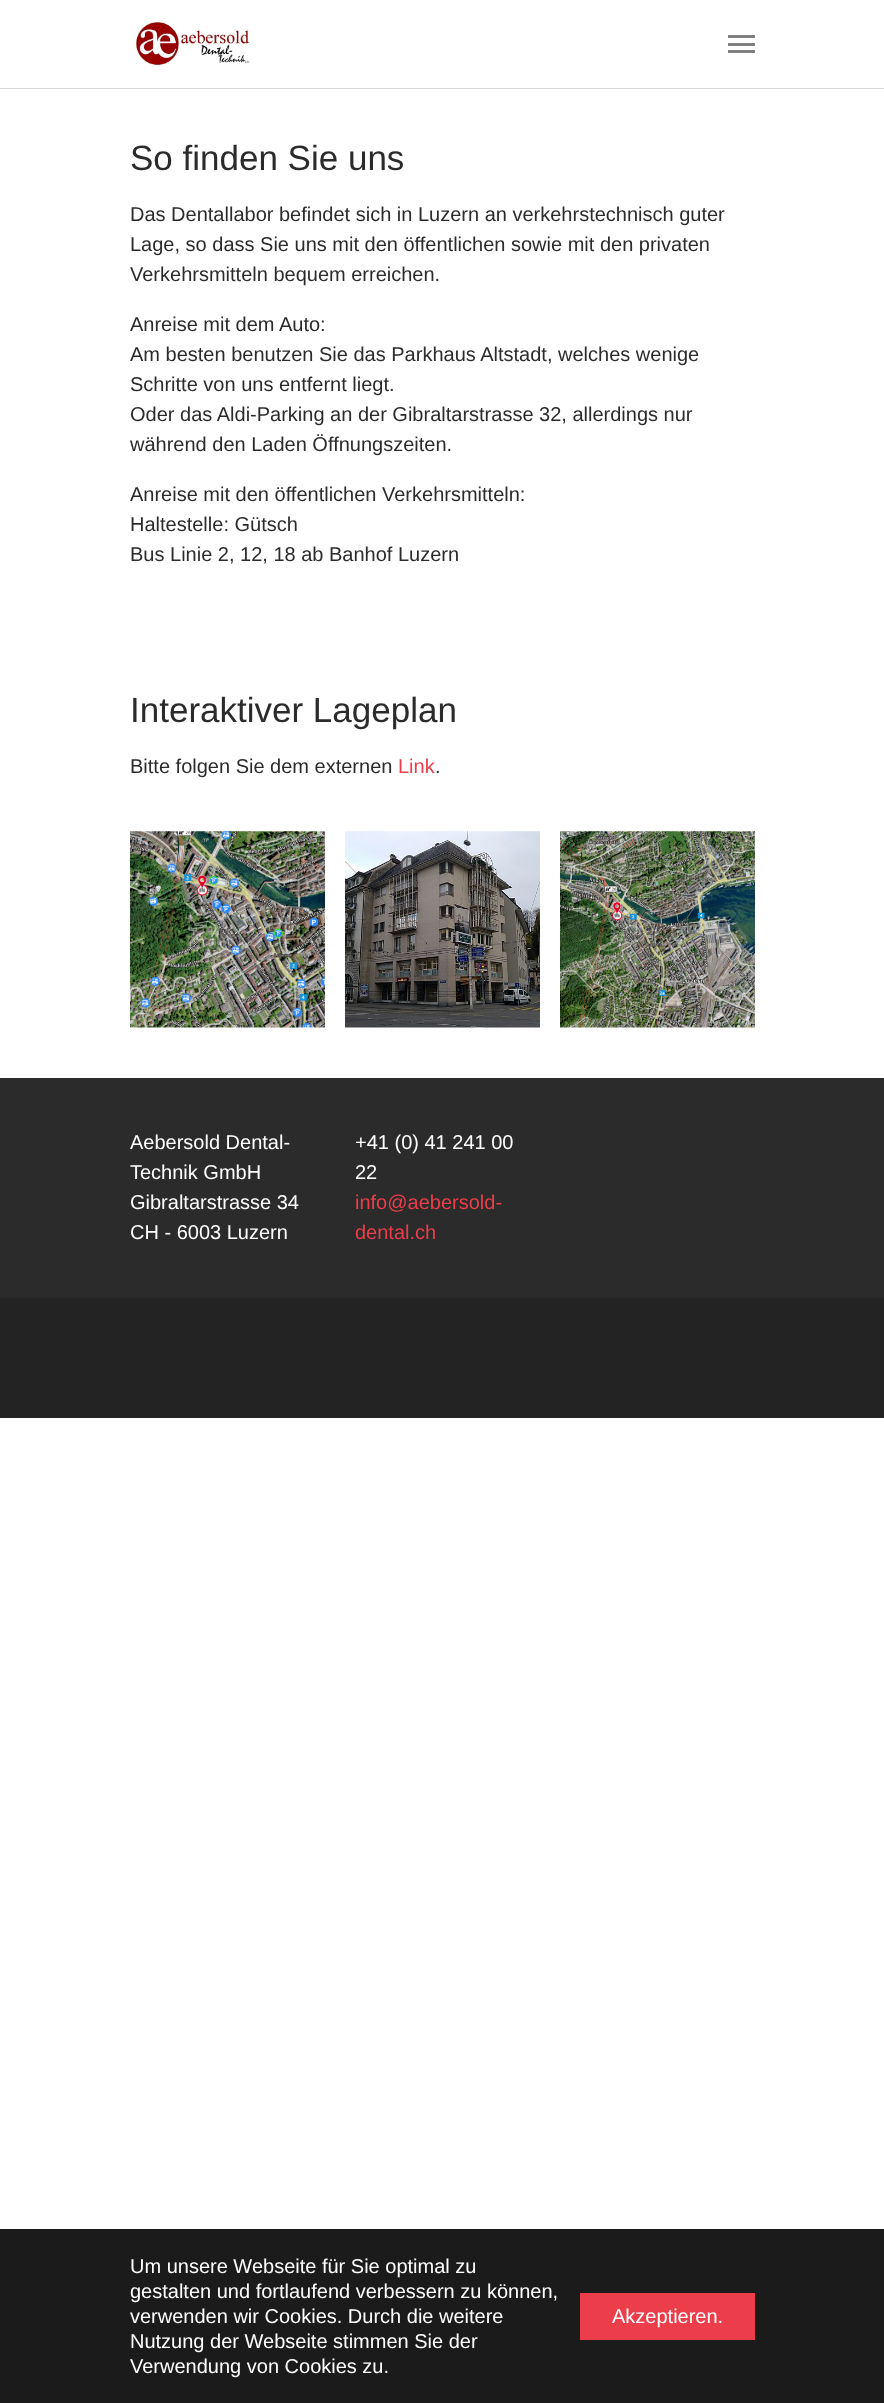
(async () => {
const canvas = document.querySelector("canvas")
canvas.width = 884
canvas.height = 2403
const c = canvas.getContext("2d")
c.miterLimit = 4
c.fontKerning = "normal"
function T(s,x,y){c.fillText(s,x,y)}
function R(x,y,w,h){c.fillRect(x,y,w,h)}
async function I(src,x,y,w,h){const img=new Image();img.src=src;await img.decode();c.drawImage(img,x,y,w,h)}
c.fillStyle="#fff"
R(0,0,884,2403)
c.fillStyle="#d9d9d9"
R(0,88,884,1)
await I("1.png",135,22,115,44)
c.fillStyle="#808080"
R(728,43,27,3)
R(728,35,27,3)
R(728,50,27,3)
c.font="35px Liberation Sans"
c.fillStyle="#2b2b2b"
T("So finden Sie uns",130,170)
c.font="20px Liberation Sans"
T("Das Dentallabor befindet sich in Luzern an verkehrstechnisch guter",130,221)
T("Lage, so dass Sie uns mit den öffentlichen sowie mit den privaten",130,251)
T("Verkehrsmitteln bequem erreichen.",130,281)
T("Anreise mit dem Auto:",130,331)
T("Am besten benutzen Sie das Parkhaus Altstadt, welches wenige",130,361)
T("Schritte von uns entfernt liegt.",130,391)
T("Oder das Aldi-Parking an der Gibraltarstrasse 32, allerdings nur",130,421)
T("während den Laden Öffnungszeiten.",130,451)
T("Anreise mit den öffentlichen Verkehrsmitteln:",130,501)
T("Haltestelle: Gütsch",130,531)
T("Bus Linie 2, 12, 18 ab Banhof Luzern",130,561)
c.font="35px Liberation Sans"
T("Interaktiver Lageplan",130,722)
c.font="20px Liberation Sans"
T("Bitte folgen Sie dem externen",130,773)
c.fillStyle="#eb3e4a"
T("Link",398,773)
c.fillStyle="#2b2b2b"
T(".",435,773)
await I("2.png",130,831,195,197)
await I("3.png",345,831,195,197)
await I("4.png",560,831,195,197)
R(0,1078,884,220)
c.fillStyle="#fff"
T("Aebersold Dental-",130,1149)
T("Technik GmbH",130,1179)
T("Gibraltarstrasse 34",130,1209)
T("CH - 6003 Luzern",130,1239)
T("+41 (0) 41 241 00",355,1149)
T("22",355,1179)
c.fillStyle="#eb3e4a"
T("info@aebersold-",355,1209)
T("dental.ch",355,1239)
c.fillStyle="#232323"
R(0,1298,884,120)
c.fillStyle="#1b1b1b"
R(0,2229,884,174)
c.fillStyle="#fff"
T("Um unsere Webseite für Sie optimal zu",130,2273)
T("gestalten und fortlaufend verbessern zu können,",130,2298)
T("verwenden wir Cookies. Durch die weitere",130,2323)
T("Nutzung der Webseite stimmen Sie der",130,2348)
T("Verwendung von Cookies zu.",130,2373)
c.fillStyle="#eb3e4a"
R(580,2293,175,47)
c.fillStyle="#fff"
T("Akzeptieren.",612,2323)
})()
